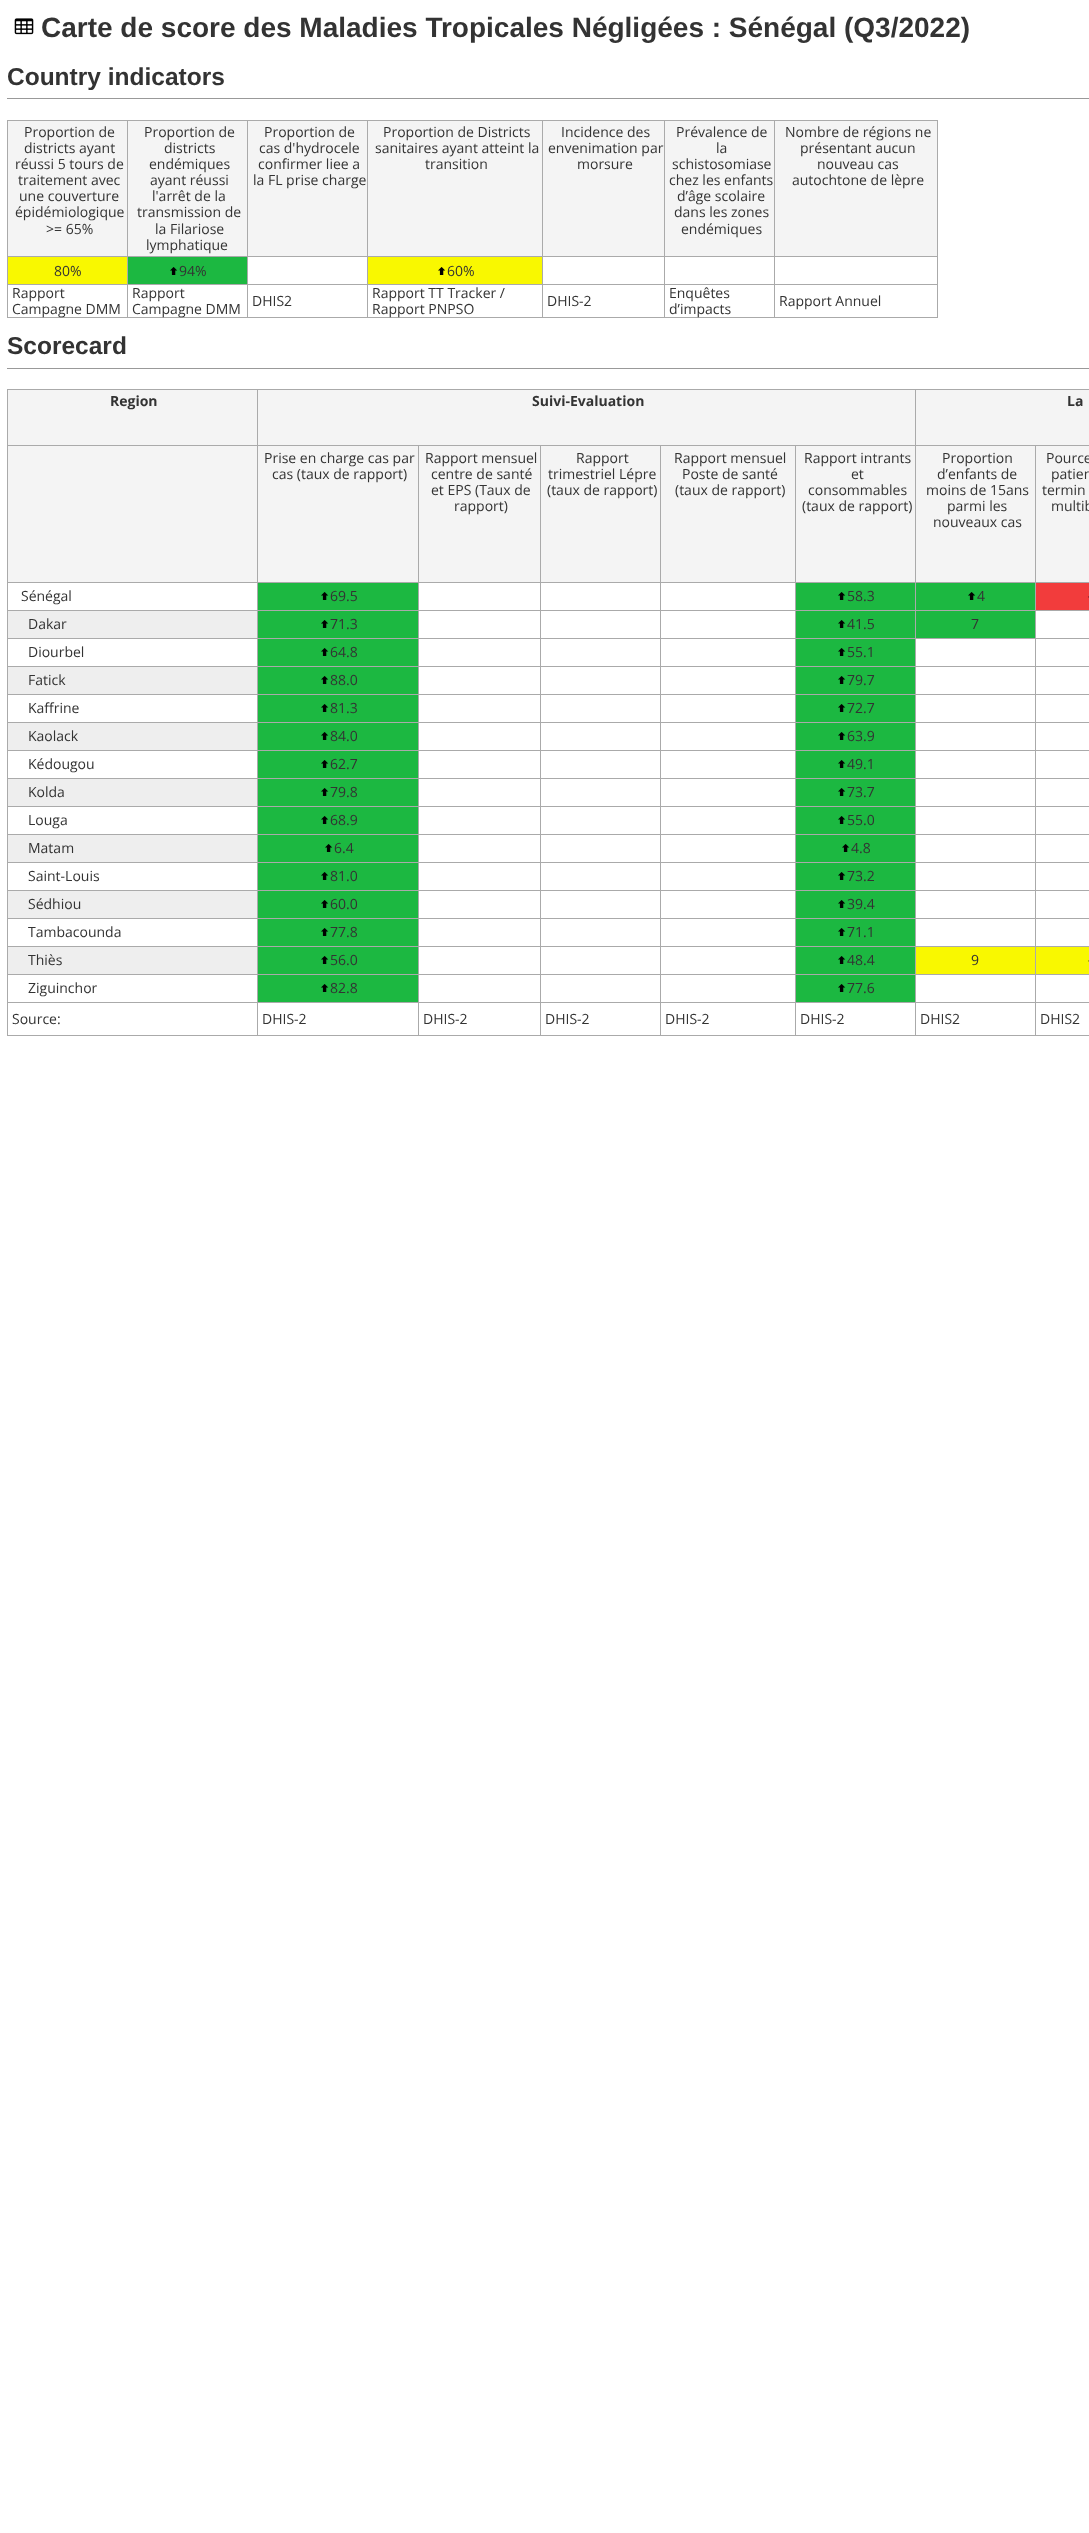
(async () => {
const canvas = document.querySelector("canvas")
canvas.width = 1089
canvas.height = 2533
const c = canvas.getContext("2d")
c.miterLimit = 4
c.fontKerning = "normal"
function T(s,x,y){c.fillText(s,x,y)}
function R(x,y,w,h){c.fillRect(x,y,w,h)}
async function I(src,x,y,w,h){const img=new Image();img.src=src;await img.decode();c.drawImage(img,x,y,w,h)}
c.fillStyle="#fff"
R(0,0,1089,2533)
await I("1.png",14,18,20,17)
c.font="bold 28px Liberation Sans"
c.fillStyle="#333"
T("Carte de score des Maladies Tropicales Négligées : Sénégal (Q3/2022)",41,37)
c.fillStyle="#999"
R(7,98,1082,1)
c.font="bold 24.5px Liberation Sans"
c.fillStyle="#333"
T("Country indicators",7,85)
c.fillStyle="#aaa"
R(7,120,1,165)
c.fillStyle="#f4f4f4"
R(8,121,119,135)
c.fillStyle="#aaa"
R(8,120,930,1)
R(127,120,1,198)
R(8,256,120,1)
c.font="14px Open Sans"
c.fillStyle="#333"
T("Proportion de",24,137)
T("districts ayant",24,153)
T("réussi 5 tours de",15,169)
T("traitement avec",18,185)
T("une couverture",19,201)
T("épidémiologique",15,217)
T(">= 65%",46,234)
c.fillStyle="#f4f4f4"
R(128,121,119,135)
c.fillStyle="#aaa"
R(247,120,1,198)
R(128,256,120,1)
c.fillStyle="#333"
T("Proportion de",144,137)
T("districts",164,153)
T("endémiques",149,169)
T("ayant réussi",150,185)
T("l'arrêt de la",152,201)
T("transmission de",137,217)
T("la Filariose",155,234)
T("lymphatique",146,250)
c.fillStyle="#f4f4f4"
R(248,121,119,135)
c.fillStyle="#aaa"
R(367,120,1,198)
R(248,256,120,1)
c.fillStyle="#333"
T("Proportion de",264,137)
T("cas d'hydrocele",259,153)
T("confirmer liee a",258,169)
T("la FL prise charge",253,185)
c.fillStyle="#f4f4f4"
R(368,121,174,135)
c.fillStyle="#aaa"
R(542,120,1,198)
R(368,256,175,1)
c.fillStyle="#333"
T("Proportion de Districts",383,137)
T("sanitaires ayant atteint la",375,153)
T("transition",425,169)
c.fillStyle="#f4f4f4"
R(543,121,121,135)
c.fillStyle="#aaa"
R(664,120,1,198)
R(543,256,122,1)
c.fillStyle="#333"
T("Incidence des",561,137)
T("envenimation par",548,153)
T("morsure",577,169)
c.fillStyle="#f4f4f4"
R(665,121,109,135)
c.fillStyle="#aaa"
R(774,120,1,198)
R(665,256,110,1)
c.fillStyle="#333"
T("Prévalence de",676,137)
T("la",716,153)
T("schistosomiase",672,169)
T("chez les enfants",669,185)
T("d’âge scolaire",677,201)
T("dans les zones",674,217)
T("endémiques",681,234)
c.fillStyle="#f4f4f4"
R(775,121,162,135)
c.fillStyle="#aaa"
R(937,120,1,198)
R(775,256,163,1)
c.fillStyle="#333"
T("Nombre de régions ne",785,137)
T("présentant aucun",800,153)
T("nouveau cas",817,169)
T("autochtone de lèpre",792,185)
c.fillStyle="#aaa"
R(8,284,930,1)
c.fillStyle="#f9f800"
R(8,257,119,27)
c.fillStyle="#333"
T("80%",54,276)
c.fillStyle="#1cb841"
R(128,257,119,27)
await I("2.png",170,267,8,8)
c.fillStyle="#333"
T("94%",179,276)
c.fillStyle="#f9f800"
R(368,257,174,27)
await I("3.png",438,267,8,8)
c.fillStyle="#333"
T("60%",447,276)
c.fillStyle="#aaa"
R(7,285,1,33)
R(8,317,930,1)
c.fillStyle="#333"
T("Rapport",12,298)
T("Campagne DMM",12,314)
T("Rapport",132,298)
T("Campagne DMM",132,314)
T("DHIS2",252,306)
T("Rapport TT Tracker /",372,298)
T("Rapport PNPSO",372,314)
T("DHIS-2",547,306)
T("Enquêtes",669,298)
T("d’impacts",669,314)
T("Rapport Annuel",779,306)
c.fillStyle="#999"
R(7,368,1082,1)
c.font="bold 24.5px Liberation Sans"
c.fillStyle="#333"
T("Scorecard",7,354)
c.fillStyle="#aaa"
R(7,389,1,647)
c.fillStyle="#f4f4f4"
R(8,390,249,55)
c.fillStyle="#aaa"
R(8,389,1081,1)
R(257,389,1,647)
R(8,445,250,1)
c.font="bold 14px Open Sans"
c.fillStyle="#333"
T("Region",110,406)
c.fillStyle="#f4f4f4"
R(258,390,657,55)
c.fillStyle="#aaa"
R(915,389,1,647)
R(258,445,831,1)
c.fillStyle="#333"
T("Suivi-Evaluation",532,406)
c.fillStyle="#f4f4f4"
R(916,390,173,55)
c.fillStyle="#333"
T("La",1067,406)
c.fillStyle="#f4f4f4"
R(8,446,249,136)
c.fillStyle="#aaa"
R(8,582,250,1)
c.fillStyle="#f4f4f4"
R(258,446,160,136)
c.fillStyle="#aaa"
R(418,446,1,590)
R(258,582,161,1)
c.font="14px Open Sans"
c.fillStyle="#333"
T("Prise en charge cas par",264,463)
T("cas (taux de rapport)",272,479)
c.fillStyle="#f4f4f4"
R(419,446,121,136)
c.fillStyle="#aaa"
R(540,446,1,590)
R(419,582,122,1)
c.fillStyle="#333"
T("Rapport mensuel",425,463)
T("centre de santé",431,479)
T("et EPS (Taux de",431,495)
T("rapport)",454,511)
c.fillStyle="#f4f4f4"
R(541,446,119,136)
c.fillStyle="#aaa"
R(660,446,1,590)
R(541,582,120,1)
c.fillStyle="#333"
T("Rapport",576,463)
T("trimestriel Lépre",548,479)
T("(taux de rapport)",547,495)
c.fillStyle="#f4f4f4"
R(661,446,134,136)
c.fillStyle="#aaa"
R(795,446,1,590)
R(661,582,255,1)
c.fillStyle="#333"
T("Rapport mensuel",674,463)
T("Poste de santé",682,479)
T("(taux de rapport)",675,495)
c.fillStyle="#f4f4f4"
R(796,446,119,136)
c.fillStyle="#333"
T("Rapport intrants",804,463)
T("et",851,479)
T("consommables",808,495)
T("(taux de rapport)",802,511)
c.fillStyle="#f4f4f4"
R(916,446,119,136)
c.fillStyle="#aaa"
R(1035,446,1,590)
R(916,582,173,1)
c.fillStyle="#333"
T("Proportion",942,463)
T("d’enfants de",937,479)
T("moins de 15ans",926,495)
T("parmi les",947,511)
T("nouveaux cas",933,527)
c.fillStyle="#f4f4f4"
R(1036,446,53,136)
c.fillStyle="#333"
T("Pource",1046,463)
T("patien",1051,479)
T("termin",1042,495)
T("multib",1051,511)
c.fillStyle="#aaa"
R(8,610,1081,1)
c.fillStyle="#333"
T("Sénégal",21,601)
c.fillStyle="#1cb841"
R(258,583,160,27)
await I("2.png",321,592,8,8)
c.fillStyle="#333"
T("69.5",330,601)
c.fillStyle="#1cb841"
R(796,583,119,27)
await I("2.png",838,592,8,8)
c.fillStyle="#333"
T("58.3",847,601)
c.fillStyle="#1cb841"
R(916,583,119,27)
await I("2.png",968,592,8,8)
c.fillStyle="#333"
T("4",977,601)
c.fillStyle="#f23c3c"
R(1036,583,53,27)
await I("4.png",1088,596,1,2)
c.fillStyle="#eee"
R(8,611,249,27)
c.fillStyle="#aaa"
R(8,638,1081,1)
c.fillStyle="#333"
T("Dakar",28,629)
c.fillStyle="#1cb841"
R(258,611,160,27)
await I("2.png",321,620,8,8)
c.fillStyle="#333"
T("71.3",330,629)
c.fillStyle="#1cb841"
R(796,611,119,27)
await I("2.png",838,620,8,8)
c.fillStyle="#333"
T("41.5",847,629)
c.fillStyle="#1cb841"
R(916,611,119,27)
c.fillStyle="#333"
T("7",971,629)
c.fillStyle="#aaa"
R(8,666,1081,1)
c.fillStyle="#333"
T("Diourbel",28,657)
c.fillStyle="#1cb841"
R(258,639,160,27)
await I("2.png",321,648,8,8)
c.fillStyle="#333"
T("64.8",330,657)
c.fillStyle="#1cb841"
R(796,639,119,27)
await I("2.png",838,648,8,8)
c.fillStyle="#333"
T("55.1",847,657)
c.fillStyle="#eee"
R(8,667,249,27)
c.fillStyle="#aaa"
R(8,694,1081,1)
c.fillStyle="#333"
T("Fatick",28,685)
c.fillStyle="#1cb841"
R(258,667,160,27)
await I("2.png",321,676,8,8)
c.fillStyle="#333"
T("88.0",330,685)
c.fillStyle="#1cb841"
R(796,667,119,27)
await I("2.png",838,676,8,8)
c.fillStyle="#333"
T("79.7",847,685)
c.fillStyle="#aaa"
R(8,722,1081,1)
c.fillStyle="#333"
T("Kaffrine",28,713)
c.fillStyle="#1cb841"
R(258,695,160,27)
await I("2.png",321,704,8,8)
c.fillStyle="#333"
T("81.3",330,713)
c.fillStyle="#1cb841"
R(796,695,119,27)
await I("2.png",838,704,8,8)
c.fillStyle="#333"
T("72.7",847,713)
c.fillStyle="#eee"
R(8,723,249,27)
c.fillStyle="#aaa"
R(8,750,1081,1)
c.fillStyle="#333"
T("Kaolack",28,741)
c.fillStyle="#1cb841"
R(258,723,160,27)
await I("2.png",321,732,8,8)
c.fillStyle="#333"
T("84.0",330,741)
c.fillStyle="#1cb841"
R(796,723,119,27)
await I("2.png",838,732,8,8)
c.fillStyle="#333"
T("63.9",847,741)
c.fillStyle="#aaa"
R(8,778,1081,1)
c.fillStyle="#333"
T("Kédougou",28,769)
c.fillStyle="#1cb841"
R(258,751,160,27)
await I("2.png",321,760,8,8)
c.fillStyle="#333"
T("62.7",330,769)
c.fillStyle="#1cb841"
R(796,751,119,27)
await I("2.png",838,760,8,8)
c.fillStyle="#333"
T("49.1",847,769)
c.fillStyle="#eee"
R(8,779,249,27)
c.fillStyle="#aaa"
R(8,806,1081,1)
c.fillStyle="#333"
T("Kolda",28,797)
c.fillStyle="#1cb841"
R(258,779,160,27)
await I("2.png",321,788,8,8)
c.fillStyle="#333"
T("79.8",330,797)
c.fillStyle="#1cb841"
R(796,779,119,27)
await I("2.png",838,788,8,8)
c.fillStyle="#333"
T("73.7",847,797)
c.fillStyle="#aaa"
R(8,834,1081,1)
c.fillStyle="#333"
T("Louga",28,825)
c.fillStyle="#1cb841"
R(258,807,160,27)
await I("2.png",321,816,8,8)
c.fillStyle="#333"
T("68.9",330,825)
c.fillStyle="#1cb841"
R(796,807,119,27)
await I("2.png",838,816,8,8)
c.fillStyle="#333"
T("55.0",847,825)
c.fillStyle="#eee"
R(8,835,249,27)
c.fillStyle="#aaa"
R(8,862,1081,1)
c.fillStyle="#333"
T("Matam",28,853)
c.fillStyle="#1cb841"
R(258,835,160,27)
await I("2.png",325,844,8,8)
c.fillStyle="#333"
T("6.4",334,853)
c.fillStyle="#1cb841"
R(796,835,119,27)
await I("2.png",842,844,8,8)
c.fillStyle="#333"
T("4.8",851,853)
c.fillStyle="#aaa"
R(8,890,1081,1)
c.fillStyle="#333"
T("Saint-Louis",28,881)
c.fillStyle="#1cb841"
R(258,863,160,27)
await I("2.png",321,872,8,8)
c.fillStyle="#333"
T("81.0",330,881)
c.fillStyle="#1cb841"
R(796,863,119,27)
await I("2.png",838,872,8,8)
c.fillStyle="#333"
T("73.2",847,881)
c.fillStyle="#eee"
R(8,891,249,27)
c.fillStyle="#aaa"
R(8,918,1081,1)
c.fillStyle="#333"
T("Sédhiou",28,909)
c.fillStyle="#1cb841"
R(258,891,160,27)
await I("2.png",321,900,8,8)
c.fillStyle="#333"
T("60.0",330,909)
c.fillStyle="#1cb841"
R(796,891,119,27)
await I("2.png",838,900,8,8)
c.fillStyle="#333"
T("39.4",847,909)
c.fillStyle="#aaa"
R(8,946,1081,1)
c.fillStyle="#333"
T("Tambacounda",28,937)
c.fillStyle="#1cb841"
R(258,919,160,27)
await I("2.png",321,928,8,8)
c.fillStyle="#333"
T("77.8",330,937)
c.fillStyle="#1cb841"
R(796,919,119,27)
await I("2.png",838,928,8,8)
c.fillStyle="#333"
T("71.1",847,937)
c.fillStyle="#eee"
R(8,947,249,27)
c.fillStyle="#aaa"
R(8,974,1081,1)
c.fillStyle="#333"
T("Thiès",28,965)
c.fillStyle="#1cb841"
R(258,947,160,27)
await I("2.png",321,956,8,8)
c.fillStyle="#333"
T("56.0",330,965)
c.fillStyle="#1cb841"
R(796,947,119,27)
await I("2.png",838,956,8,8)
c.fillStyle="#333"
T("48.4",847,965)
c.fillStyle="#f9f800"
R(916,947,119,27)
c.fillStyle="#333"
T("9",971,965)
c.fillStyle="#f9f800"
R(1036,947,53,27)
await I("5.png",1088,960,1,2)
c.fillStyle="#aaa"
R(8,1002,1081,1)
c.fillStyle="#333"
T("Ziguinchor",28,993)
c.fillStyle="#1cb841"
R(258,975,160,27)
await I("2.png",321,984,8,8)
c.fillStyle="#333"
T("82.8",330,993)
c.fillStyle="#1cb841"
R(796,975,119,27)
await I("2.png",838,984,8,8)
c.fillStyle="#333"
T("77.6",847,993)
c.fillStyle="#aaa"
R(8,1035,1081,1)
c.fillStyle="#333"
T("Source:",12,1024)
T("DHIS-2",262,1024)
T("DHIS-2",423,1024)
T("DHIS-2",545,1024)
T("DHIS-2",665,1024)
T("DHIS-2",800,1024)
T("DHIS2",920,1024)
T("DHIS2",1040,1024)
})()
